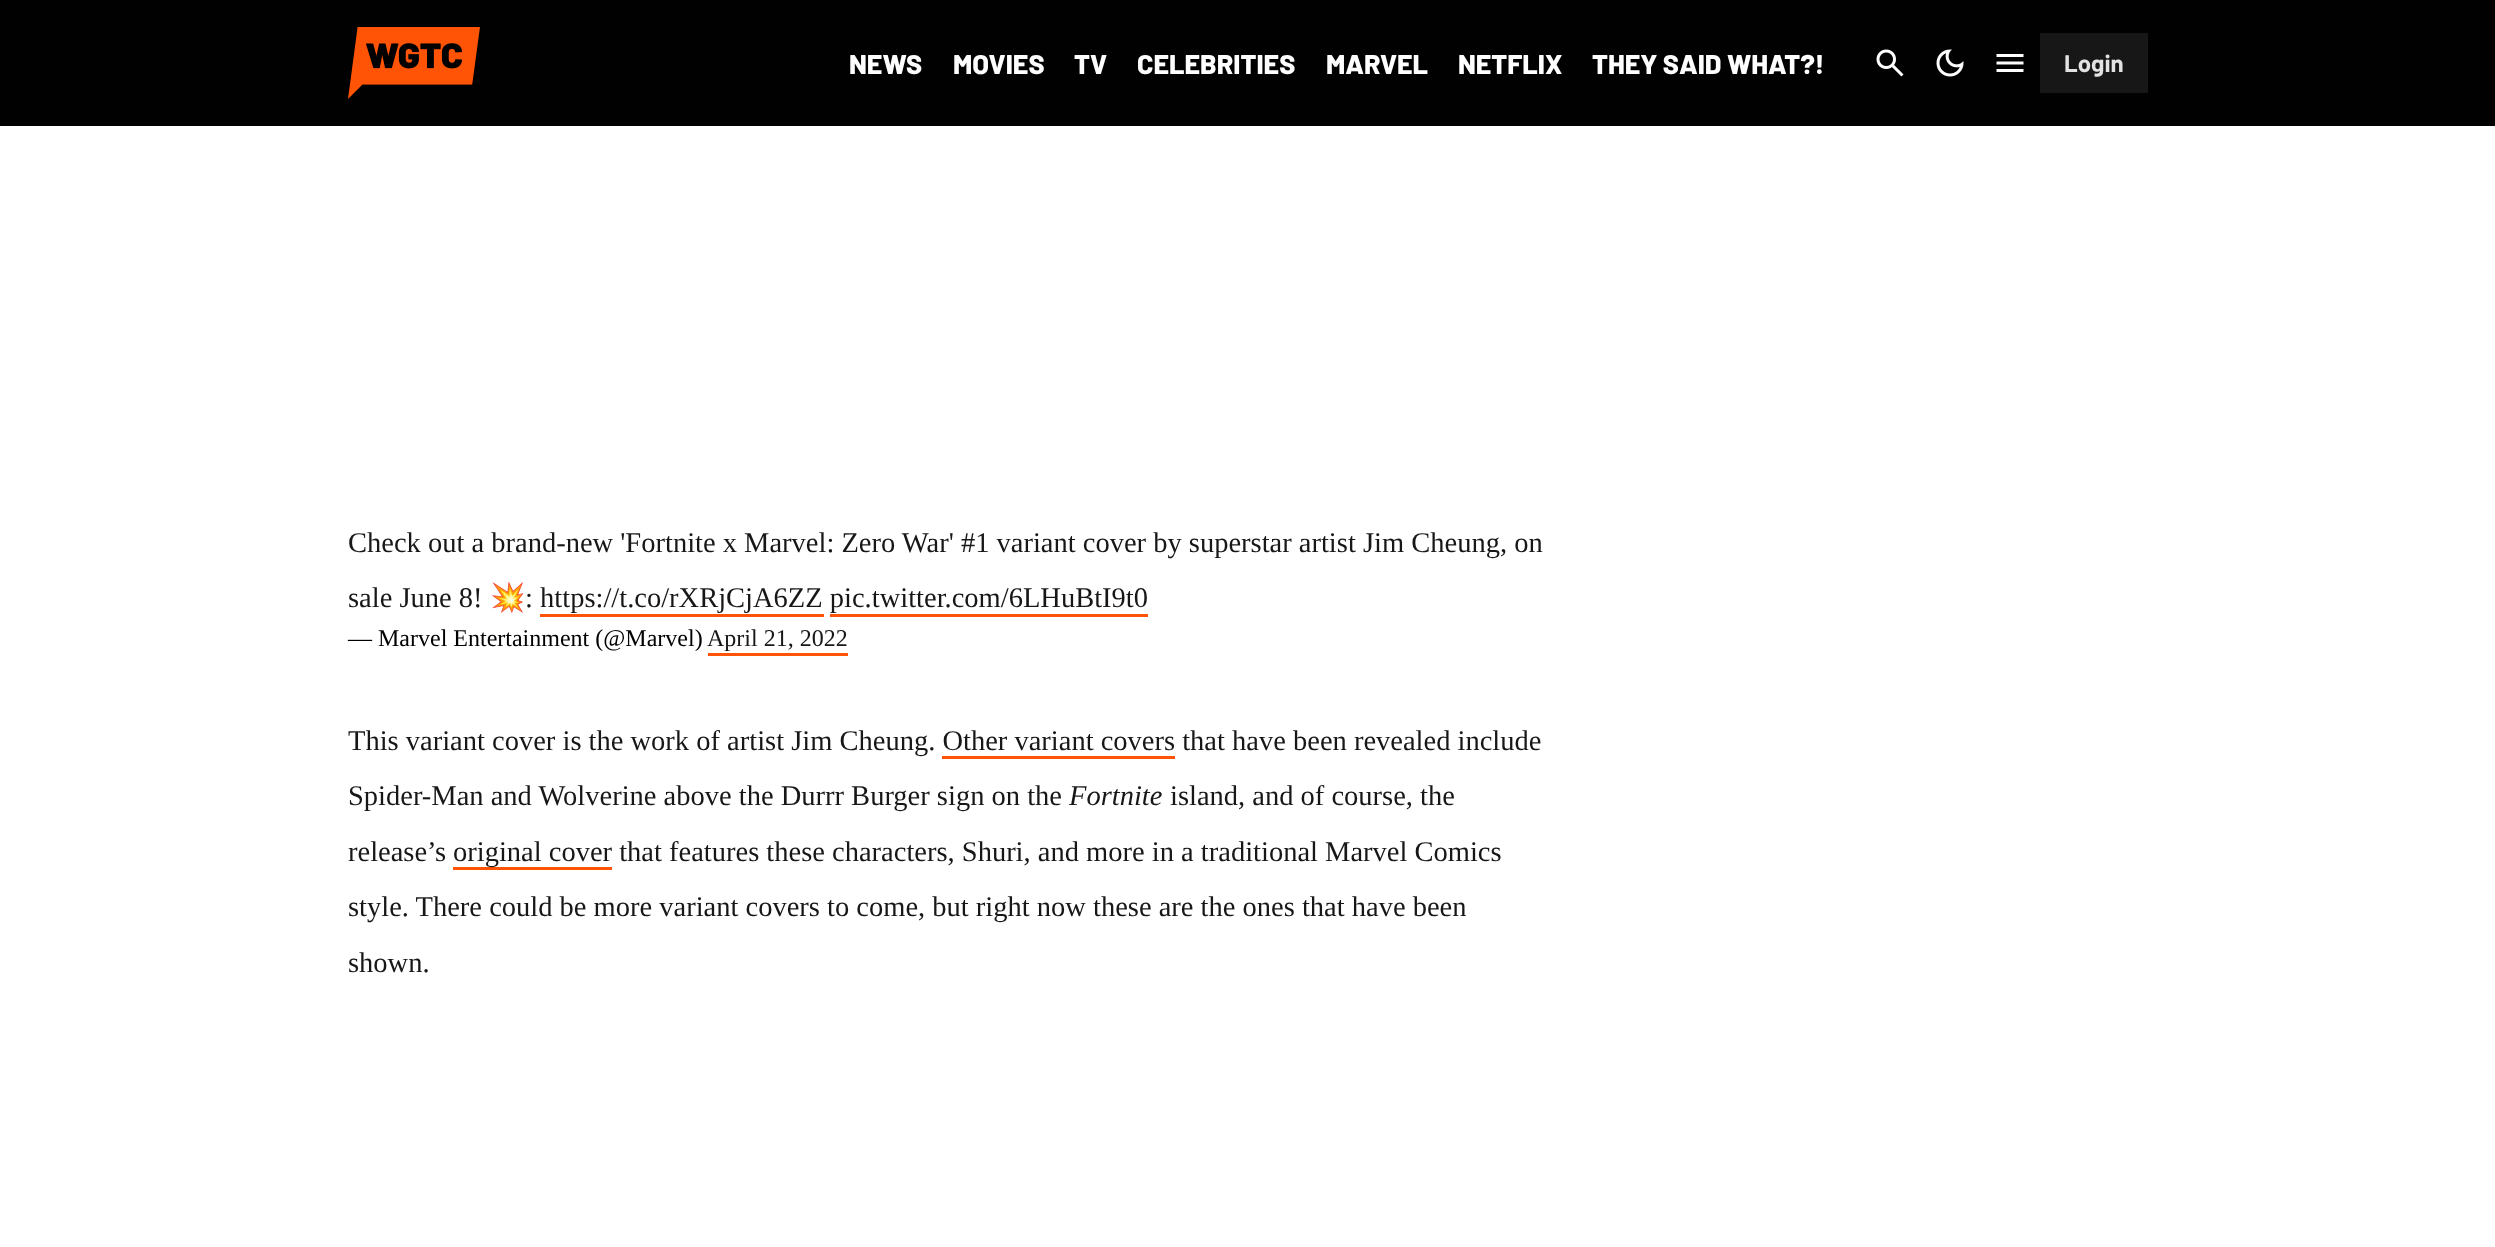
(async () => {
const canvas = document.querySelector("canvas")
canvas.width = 2495
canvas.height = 1247
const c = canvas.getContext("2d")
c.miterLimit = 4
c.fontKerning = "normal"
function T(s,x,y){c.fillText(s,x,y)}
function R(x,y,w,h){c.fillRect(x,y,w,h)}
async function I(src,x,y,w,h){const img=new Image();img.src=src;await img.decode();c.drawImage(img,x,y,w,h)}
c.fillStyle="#fff"
R(0,0,2495,1247)
c.fillStyle="#010101"
R(0,0,2495,126)
await I("1.png",348,27,132,72)
c.font="800 27px Barlow"
c.fillStyle="#fefefe"
T("NEWS",849,74)
T("MOVIES",953,74)
T("TV",1074,74)
T("CELEBRITIES",1137,74)
T("MARVEL",1326,74)
T("NETFLIX",1458,74)
T("THEY SAID WHAT?!",1592,74)
await I("2.png",1876,49,28,28)
await I("3.png",1936,49,28,28)
await I("4.png",1996,54,28,18)
c.fillStyle="#171717"
R(2040,33,108,60)
c.font="bold 24px Barlow"
c.fillStyle="#e2e2e2"
T("Login",2064,72)
c.font="28.5px Liberation Serif"
c.fillStyle="#171717"
T("Check out a brand-new 'Fortnite x Marvel: Zero War' #1 variant cover by superstar artist Jim Cheung, on",348,552)
T("sale June 8!",348,607)
c.font="28.5px Noto Color Emoji"
T("💥",490,607)
c.font="28.5px Liberation Serif"
T(": https://t.co/rXRjCjA6ZZ pic.twitter.com/6LHuBtI9t0",525,607)
c.fillStyle="#ff5305"
R(540,614,284,3)
R(830,614,318,3)
c.font="24px Liberation Serif"
c.fillStyle="#000"
T("— Marvel Entertainment (@Marvel)",348,646)
c.fillStyle="#171717"
T("April 21, 2022",707,646)
c.fillStyle="#ff5305"
R(708,653,140,3)
c.font="28.5px Liberation Serif"
c.fillStyle="#171717"
T("This variant cover is the work of artist Jim Cheung. Other variant covers that have been revealed include",348,750)
c.fillStyle="#ff5305"
R(942,756,233,3)
c.fillStyle="#171717"
T("Spider-Man and Wolverine above the Durrr Burger sign on the",348,805)
c.font="italic 28.5px Liberation Serif"
T("Fortnite",1069,805)
c.font="28.5px Liberation Serif"
T("island, and of course, the",1170,805)
T("release’s",348,861)
c.fillStyle="#ff5305"
R(453,867,159,3)
c.fillStyle="#171717"
T("original cover that features these characters, Shuri, and more in a traditional Marvel Comics",453,861)
T("style. There could be more variant covers to come, but right now these are the ones that have been",348,916)
T("shown.",348,972)
})()
